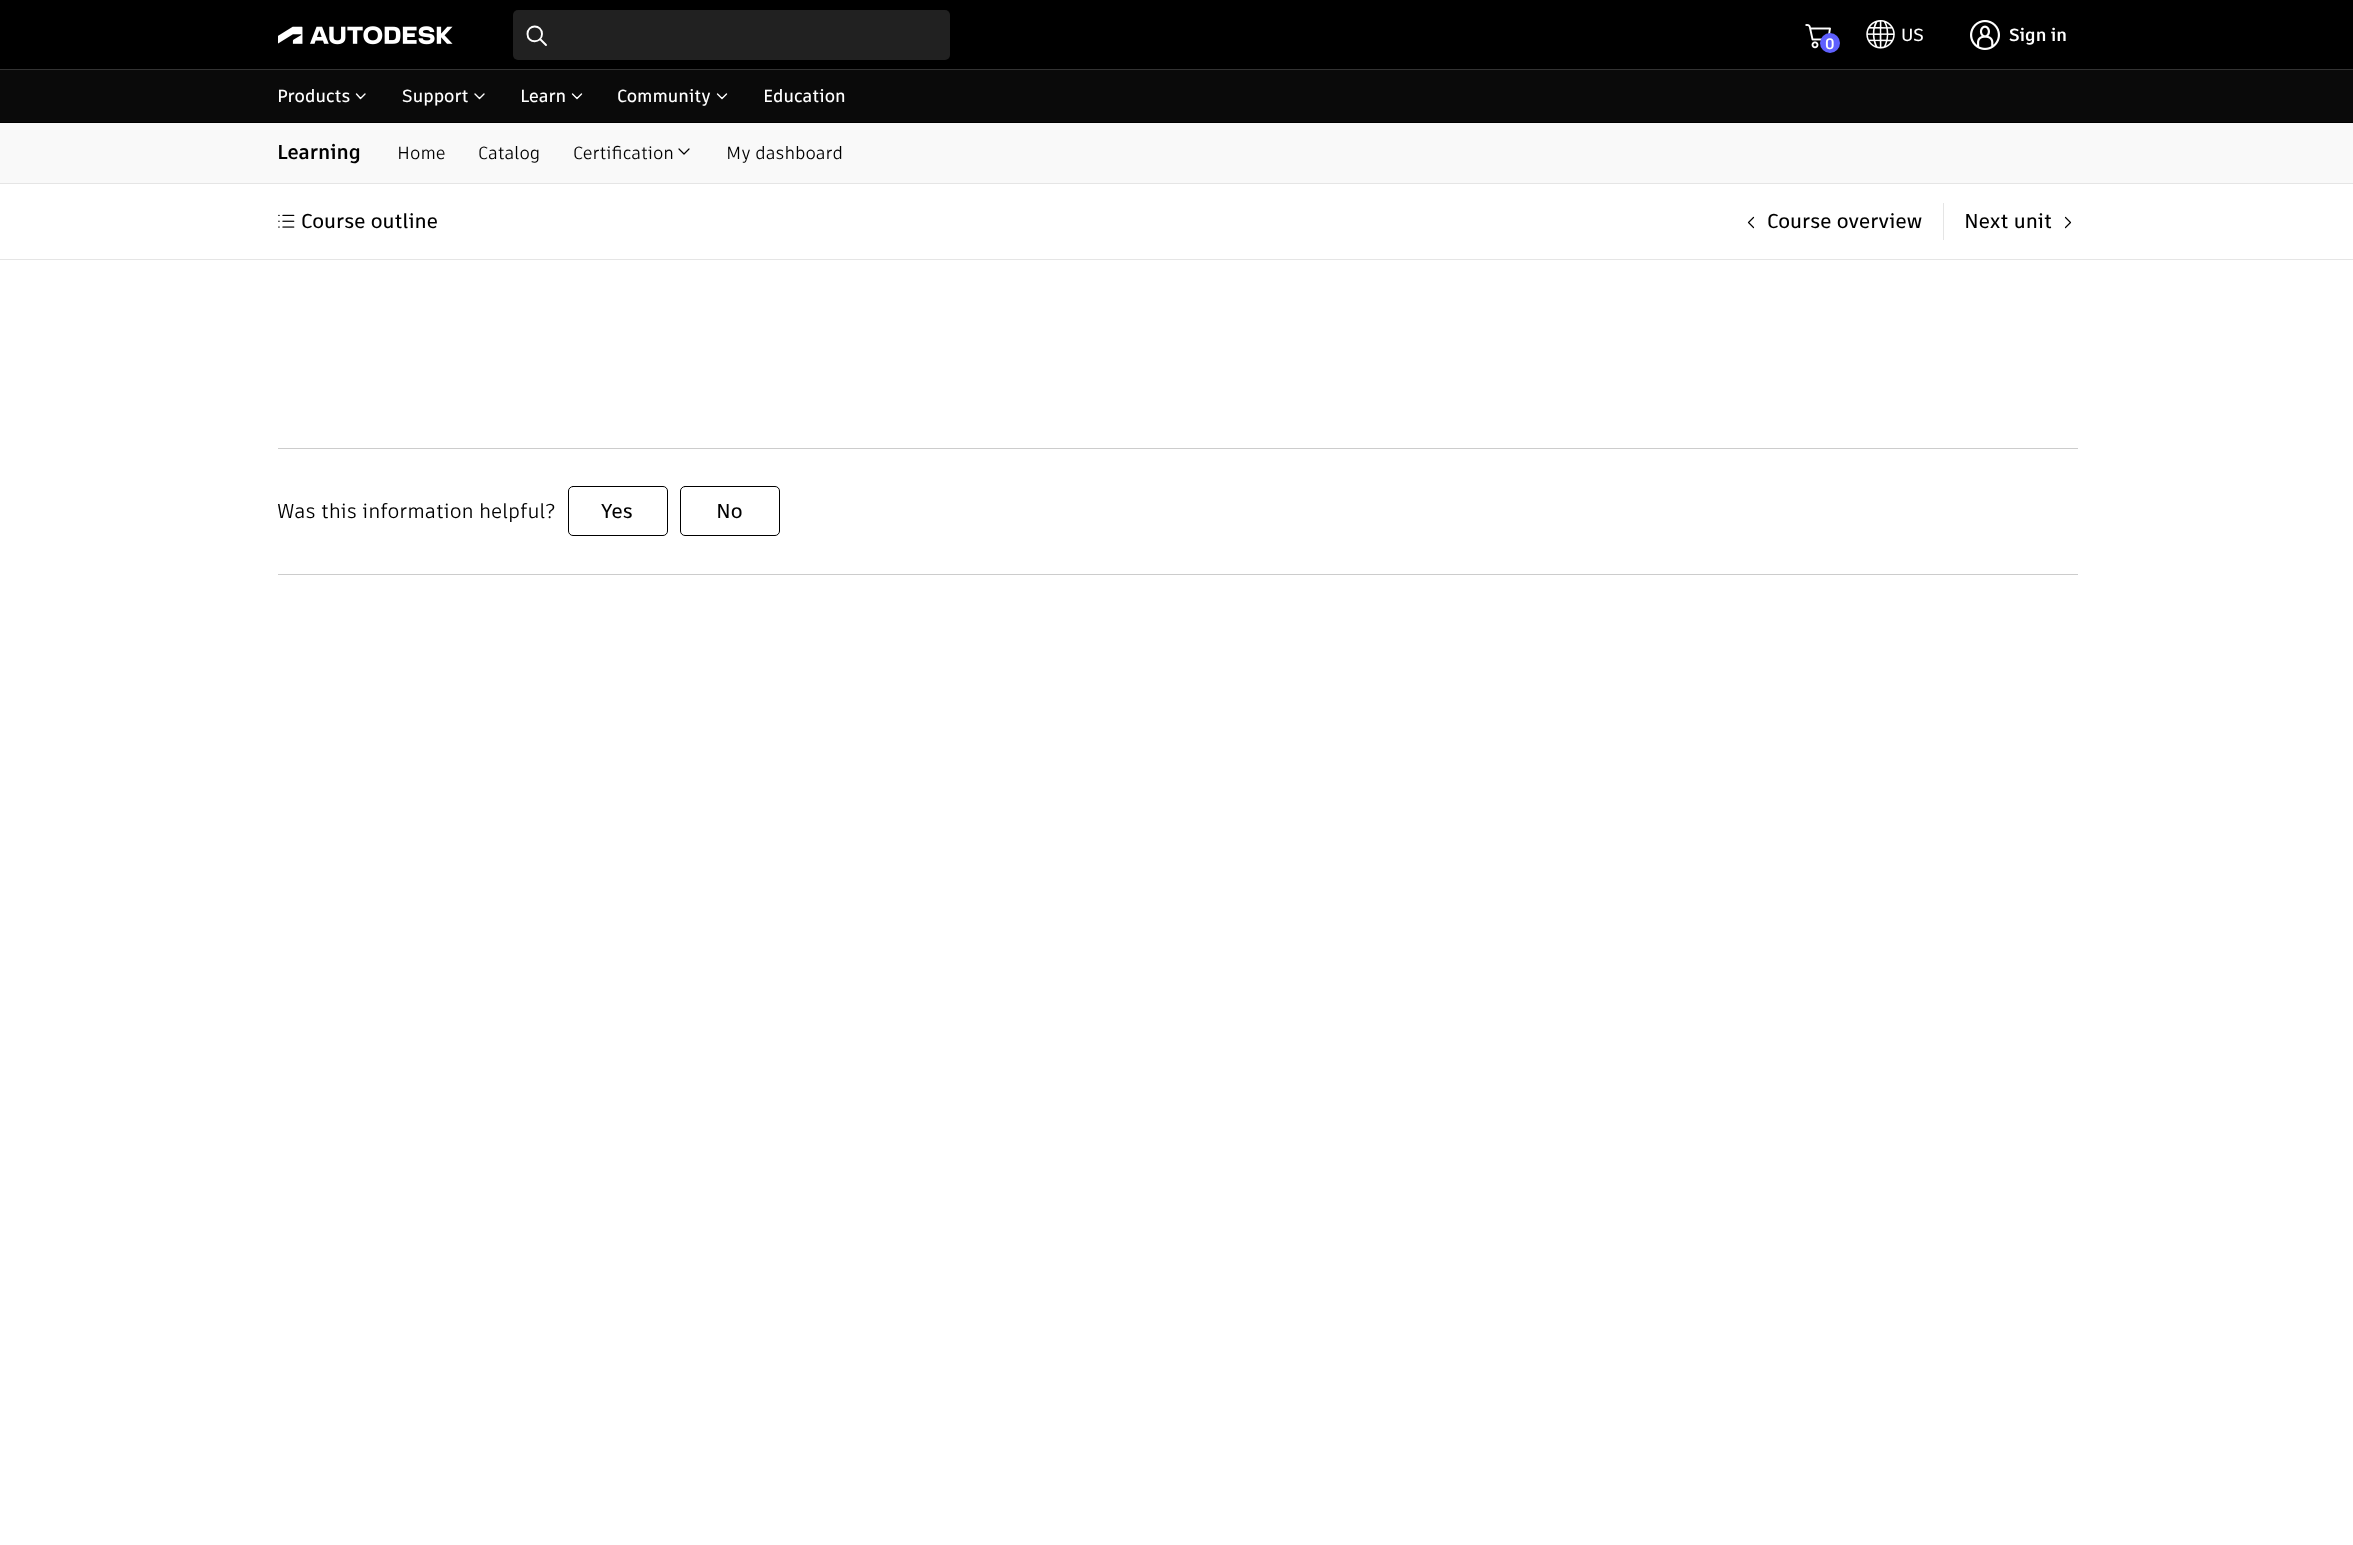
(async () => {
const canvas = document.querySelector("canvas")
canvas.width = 2353
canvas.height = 1545
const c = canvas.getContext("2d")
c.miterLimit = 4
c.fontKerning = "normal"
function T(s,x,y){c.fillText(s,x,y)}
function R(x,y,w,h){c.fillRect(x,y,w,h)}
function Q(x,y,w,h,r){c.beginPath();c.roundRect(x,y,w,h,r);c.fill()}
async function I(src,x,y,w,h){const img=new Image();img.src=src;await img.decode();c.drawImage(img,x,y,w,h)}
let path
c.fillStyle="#fff"
R(0,0,2353,1545)
c.fillStyle="#000"
R(0,0,2353,123)
c.fillStyle="#0a0a0a"
R(0,70,2353,52)
await I("1.png",278,26,175,19)
c.fillStyle="#212121"
Q(513,10,437,50,5)
path = new Path2D("M540 39l6 6m-4-11c0 9.5-14.5 10-14.5 0c0-10 14.5-10 14.5 0z")
c.strokeStyle="#fff"
c.lineWidth=1.9
c.lineCap="round"
c.stroke(path)
await I("2.png",1866,20,29,29)
c.font="600 17.5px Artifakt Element"
c.fillStyle="#fff"
T("US",1901,41)
await I("3.png",1805,24,26,25)
c.fillStyle="#5f60ff"
c.beginPath()
c.arc(1830,43,10,0,7)
c.fill()
c.font="bold 15px Artifakt Element"
c.fillStyle="#fff"
T("0",1825,49)
await I("4.png",1970,20,30,30)
c.font="bold 17.5px Artifakt Element"
T("Sign in",2009,41)
c.fillStyle="#333"
path = new Path2D("M0 69v1h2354v50v-51z")
c.fill(path)
c.font="600 17.5px Artifakt Element"
c.fillStyle="#fff"
T("Products",277,102)
path = new Path2D("M365 94l-4.5 4.5l-4-4.5")
c.lineWidth=1.4
c.lineJoin="round"
c.stroke(path)
T("Support",402,102)
path = new Path2D("M484 94l-4.5 4.5l-4.5-4.5")
c.stroke(path)
T("Learn",520,102)
path = new Path2D("M581.5 94l-4.5 4.5l-4.5-4.5")
c.stroke(path)
T("Community",617,102)
path = new Path2D("M726.5 94l-4.5 4.5l-4.5-4.5")
c.stroke(path)
T("Education",763,102)
c.fillStyle="#f9f9f9"
R(0,123,2353,60)
c.fillStyle="#e5e5e5"
R(0,183,2353,1)
c.font="bold 20px Artifakt Element"
c.fillStyle="#000"
T("Learning",277,159)
c.font="17.5px Artifakt Element"
T("Home",397,159)
T("Catalog",478,159)
T("Certification",573,159)
path = new Path2D("M689 149l-5 5l-5-5")
c.strokeStyle="#000"
c.lineWidth=1.2
c.stroke(path)
T("My dashboard",726,159)
c.fillStyle="#e5e5e5"
R(0,259,2353,1)
await I("5.png",278,214,17,14)
c.font="600 20px Artifakt Element"
c.fillStyle="#000"
T("Course outline",301,228)
path = new Path2D("M1753.5 217.5l-5 5l5 5")
c.stroke(path)
T("Course overview",1767,228)
c.fillStyle="#e5e5e5"
R(1943,203,1,37)
c.fillStyle="#000"
T("Next unit",1964,228)
path = new Path2D("M2065.5 217.5l5 5l-5 5")
c.stroke(path)
c.fillStyle="#ccc"
R(278,448,1800,1)
R(278,574,1800,1)
c.font="20px Artifakt Element"
c.fillStyle="#000"
T("Was this information helpful?",277,518)
c.beginPath()
c.roundRect(568.5,486.5,99,49,4.5)
c.lineWidth=1
c.lineJoin="miter"
c.stroke()
c.font="600 20px Artifakt Element"
T("Yes",601,518)
c.beginPath()
c.roundRect(680.5,486.5,99,49,4.5)
c.stroke()
T("No",716,518)
})()
